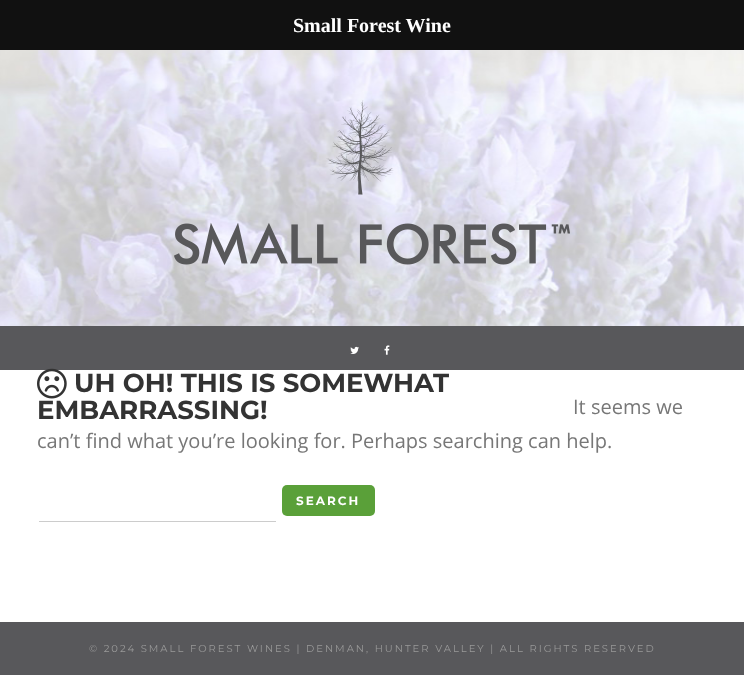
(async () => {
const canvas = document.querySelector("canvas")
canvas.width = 744
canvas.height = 685
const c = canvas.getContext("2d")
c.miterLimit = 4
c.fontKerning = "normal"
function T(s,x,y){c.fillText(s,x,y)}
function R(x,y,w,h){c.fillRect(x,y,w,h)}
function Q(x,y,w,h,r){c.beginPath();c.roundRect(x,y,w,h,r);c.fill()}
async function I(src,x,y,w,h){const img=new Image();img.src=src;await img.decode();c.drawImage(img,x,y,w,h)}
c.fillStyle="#fff"
R(0,0,744,685)
c.fillStyle="#111"
R(0,0,744,50)
c.font="bold 20px Liberation Serif"
c.fillStyle="#fff"
T("Small Forest Wine",293,32)
await I("1.png",0,50,744,276)
await I("2.png",174,100,396,165)
c.fillStyle="#58585b"
R(0,326,744,44)
await I("3.png",350,346,9,8)
await I("4.png",384,345,6,10)
await I("5.png",37,368,30,31)
c.font="bold 26px Montserrat"
c.fillStyle="#333"
T("UH OH! THIS IS SOMEWHAT",74,392)
T("EMBARRASSING!",37,419)
c.font="20px Open Sans"
c.fillStyle="#777"
T("It seems we",573,414)
T("can’t find what you’re looking for. Perhaps searching can help.",37,448)
c.fillStyle="#5aa039"
Q(282,485,93,31,5)
c.letterSpacing="2px"
c.font="bold 12px Montserrat"
c.fillStyle="#fff"
T("SEARCH",296,505)
c.fillStyle="#ccc"
R(39,521,237,1)
c.fillStyle="#58585b"
R(0,622,744,53)
c.font="10px Montserrat"
c.fillStyle="#999"
T("© 2024 SMALL FOREST WINES | DENMAN, HUNTER VALLEY | ALL RIGHTS RESERVED",89,652)
})()
